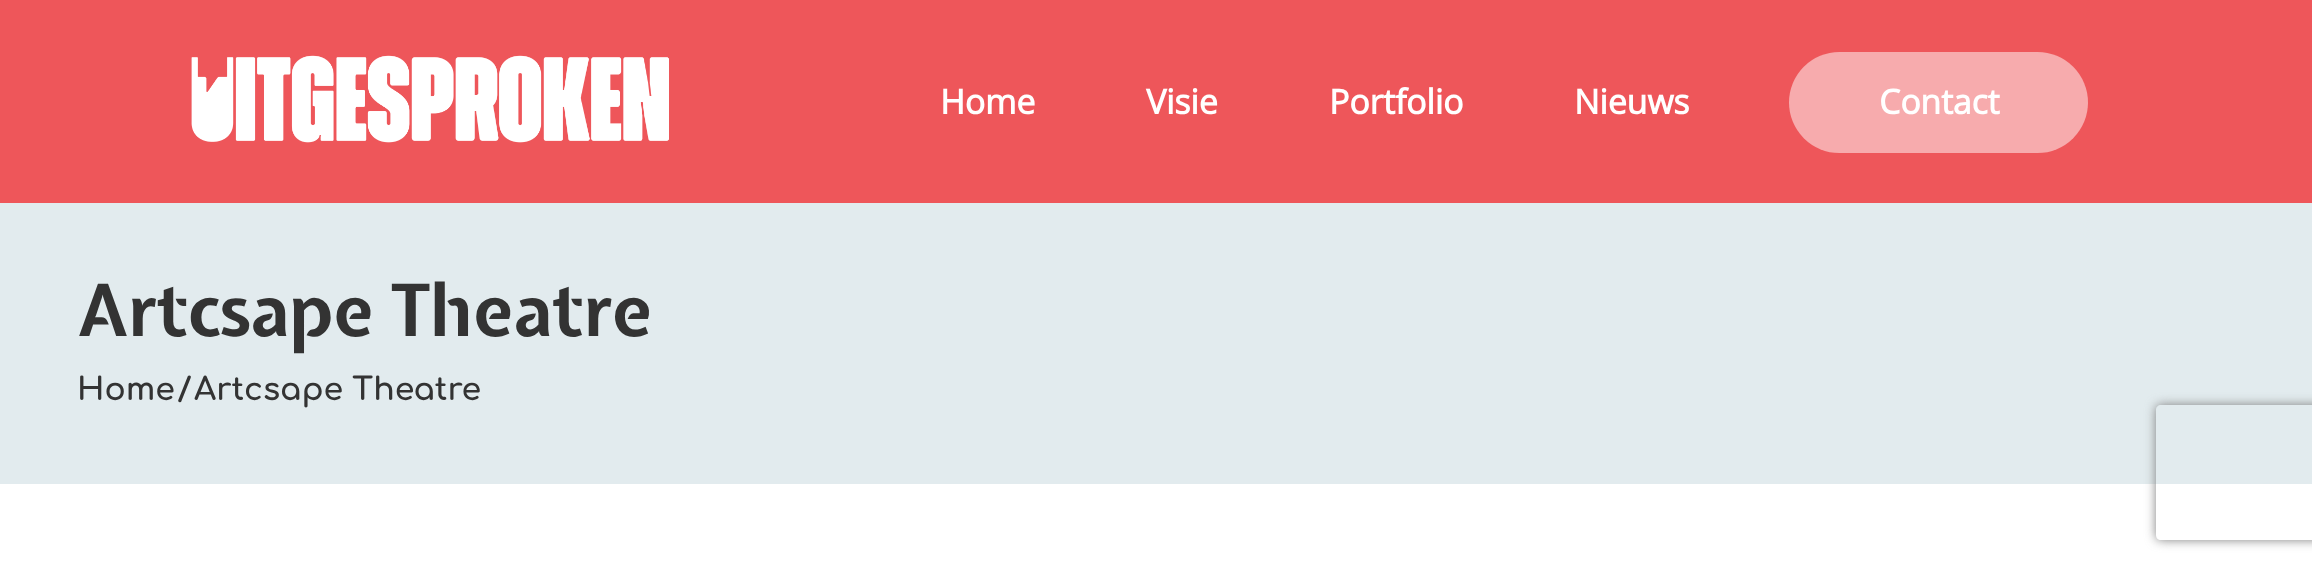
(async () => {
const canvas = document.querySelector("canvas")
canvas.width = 2312
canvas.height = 571
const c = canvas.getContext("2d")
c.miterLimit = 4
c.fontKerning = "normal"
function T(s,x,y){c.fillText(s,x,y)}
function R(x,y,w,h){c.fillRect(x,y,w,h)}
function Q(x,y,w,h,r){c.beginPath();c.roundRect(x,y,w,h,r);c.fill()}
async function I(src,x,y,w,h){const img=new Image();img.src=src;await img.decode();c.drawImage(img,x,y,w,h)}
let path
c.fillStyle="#fff"
R(0,0,2312,571)
c.fillStyle="#ee565a"
R(0,0,2312,203)
await I("1.png",191,55,478,88)
c.letterSpacing="-0.25px"
c.font="bold 34px Open Sans"
c.fillStyle="#fff"
T("Home",940,114)
T("Visie",1146,114)
T("Portfolio",1329,114)
T("Nieuws",1574,114)
c.fillStyle="#f7abad"
Q(1789,52,299,101,50.5)
c.fillStyle="#fff"
T("Contact",1879,114)
c.fillStyle="#e2ebee"
R(0,203,2312,281)
c.letterSpacing="-0.4px"
c.font="bold 72px Expletus Sans"
c.fillStyle="#333"
T("Artcsape Theatre",77,336)
c.letterSpacing="0px"
c.font="bold 31.5px Comfortaa"
T("Home",77,400)
T("/",177,400)
T("Artcsape Theatre",194,400)
c.save()
path = new Path2D("M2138 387h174v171h-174zm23 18h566c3 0 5 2 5 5v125c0 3-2 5-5 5h-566c-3 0-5-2-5-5v-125c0-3 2-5 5-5z")
c.clip(path,"evenodd")
c.fillStyle="#808080"
c.filter="blur(5.5px)"
c.beginPath()
c.roundRect(2156,405,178,135,5)
c.fill()
c.filter="none"
c.restore()
})()
